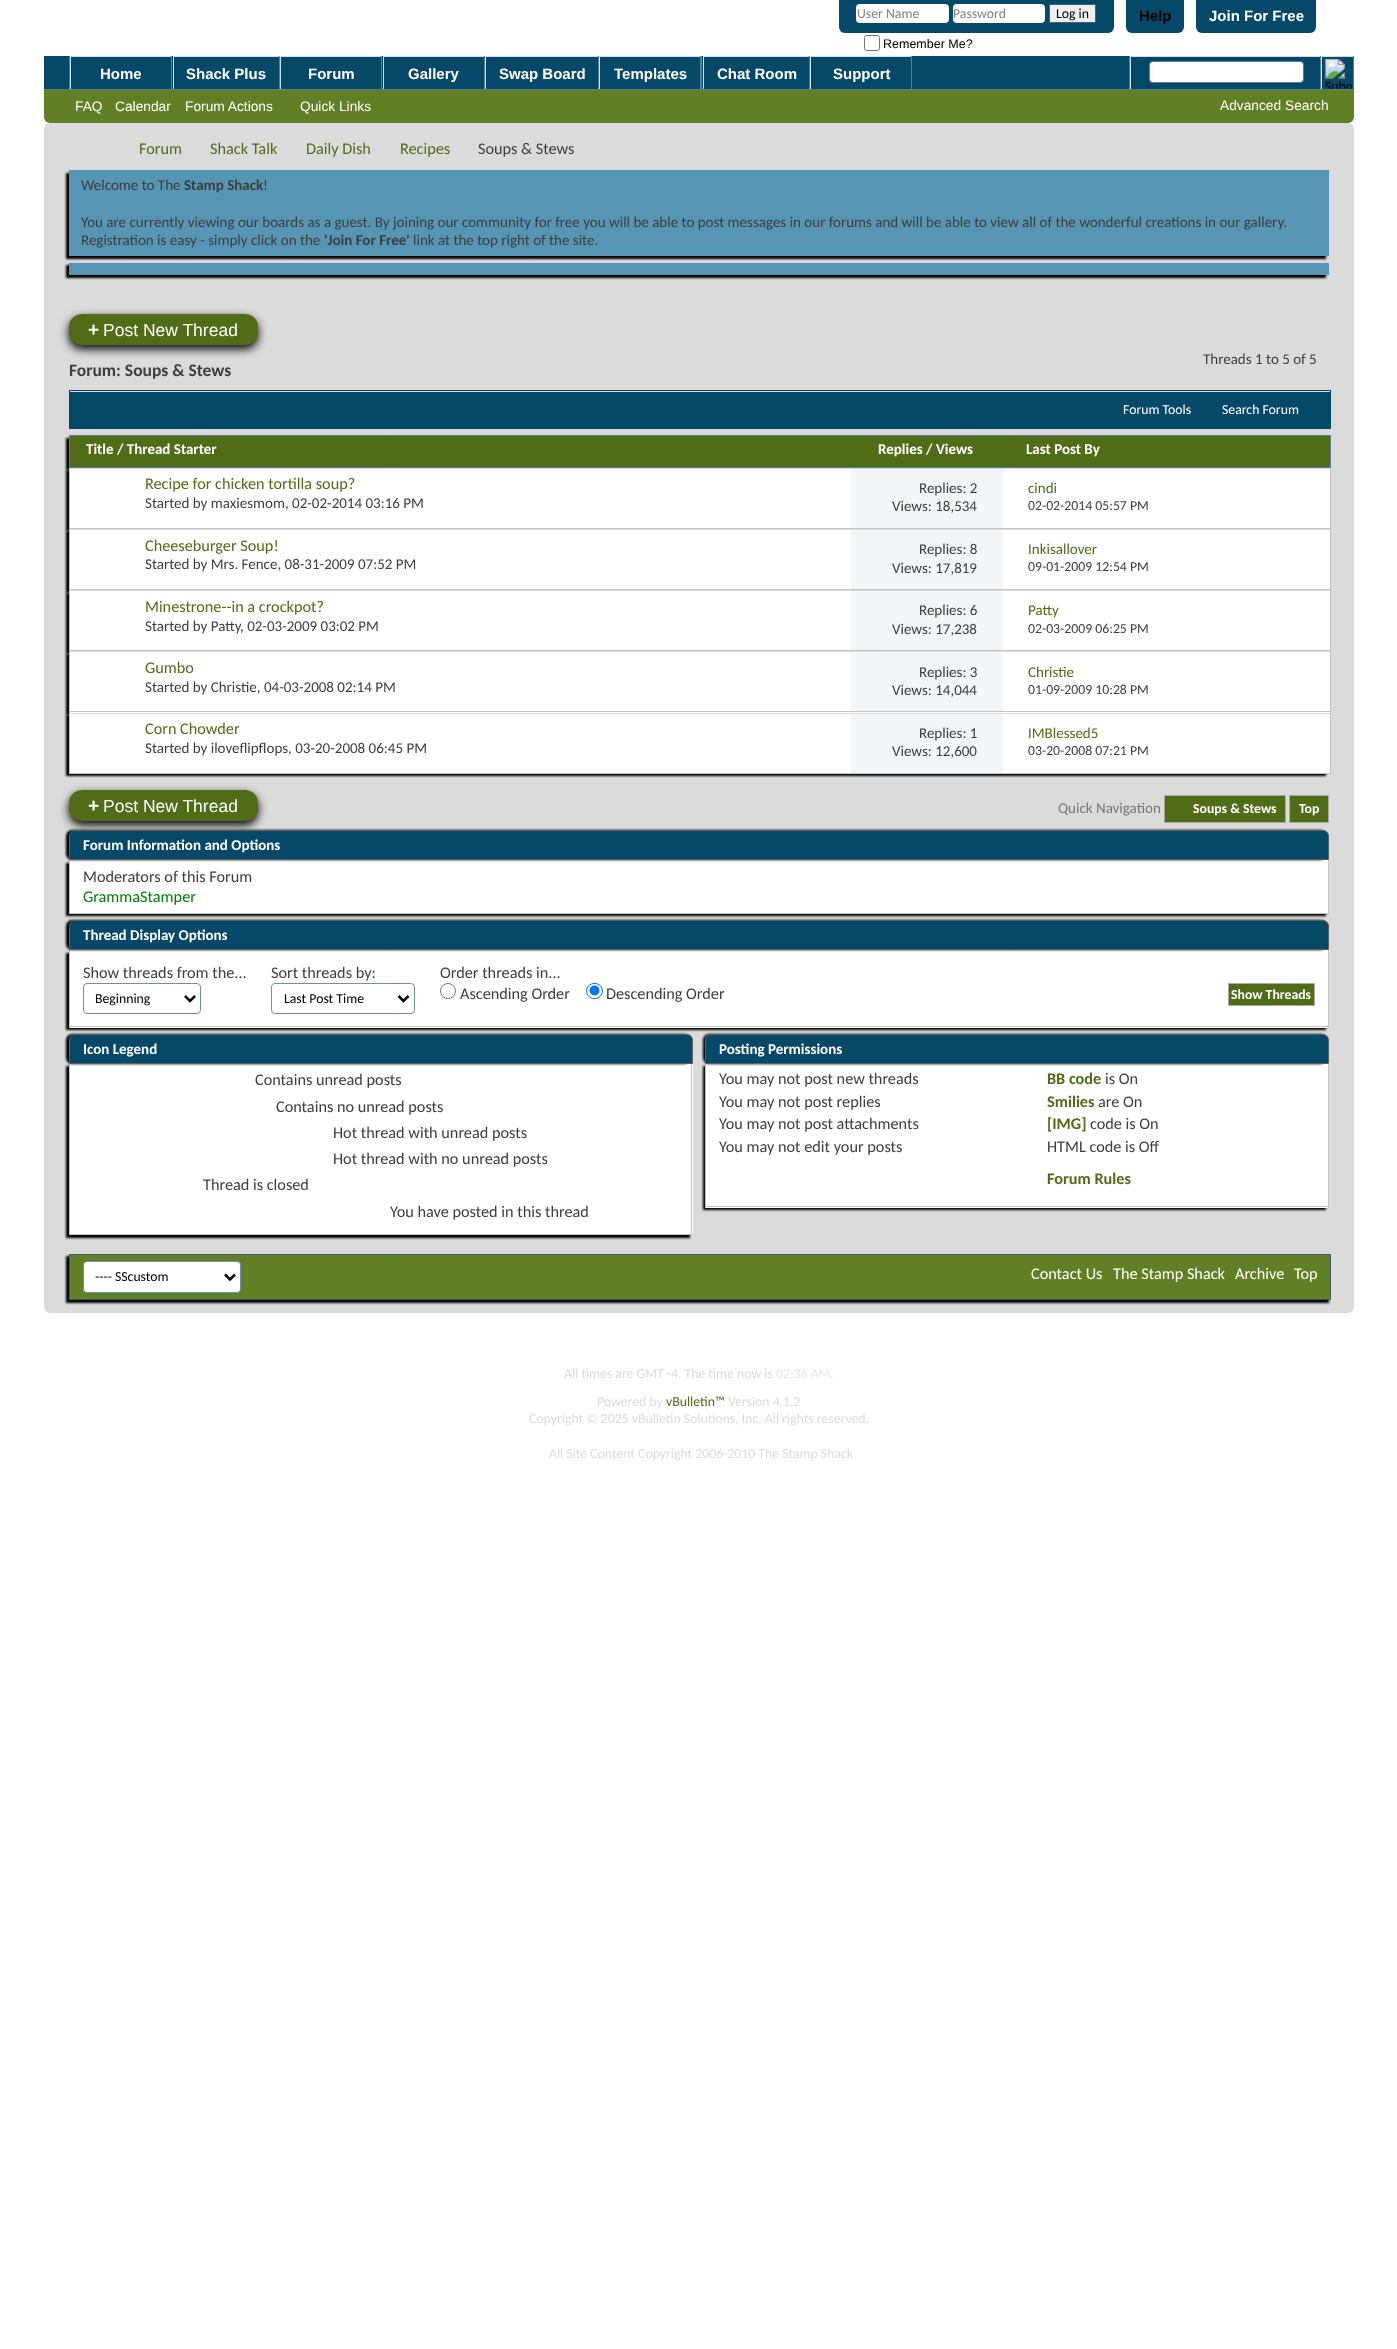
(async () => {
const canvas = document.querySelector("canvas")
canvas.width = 1397
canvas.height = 2349
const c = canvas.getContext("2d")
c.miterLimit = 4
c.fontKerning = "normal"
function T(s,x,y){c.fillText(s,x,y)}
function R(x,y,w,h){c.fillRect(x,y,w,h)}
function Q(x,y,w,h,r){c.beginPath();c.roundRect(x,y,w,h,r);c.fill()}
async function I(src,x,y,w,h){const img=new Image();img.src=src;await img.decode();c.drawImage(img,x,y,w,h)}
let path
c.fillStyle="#fff"
R(0,0,1397,2349)
c.fillStyle="#054868"
c.beginPath()
c.roundRect(839,0,275,33,[0,0,6,6])
c.fill()
c.fillStyle="#fff"
Q(856,4,93,19,4)
c.font="13.75px Carlito"
c.fillStyle="#828282"
T("User Name",857,18)
c.fillStyle="#fff"
Q(953,4,92,19,4)
c.fillStyle="#828282"
T("Password",953,18)
c.fillStyle="#efefef"
c.beginPath()
c.rect(1049.5,4.5,46,18)
c.fill()
c.strokeStyle="#415d8d"
c.stroke()
c.fillStyle="#000"
T("Log in",1056,18)
c.beginPath()
c.roundRect(864.5,35.5,15,15,2)
c.strokeStyle="#767676"
c.stroke()
c.font="12.5px Liberation Sans"
T("Remember Me?",883,48)
c.fillStyle="#054868"
c.beginPath()
c.roundRect(1126,0,58,33,[0,0,6,6])
c.fill()
c.font="bold 15px Liberation Sans"
c.fillStyle="#000"
T("Help",1139,21)
c.fillStyle="#054868"
c.beginPath()
c.roundRect(1196,0,120,33,[0,0,6,6])
c.fill()
c.fillStyle="#fff"
T("Join For Free",1209,21)
c.fillStyle="#617f25"
c.beginPath()
c.roundRect(44,56,1310,67,[0,0,6,6])
c.fill()
c.fillStyle="#054868"
R(44,56,1309,33)
c.fillStyle="#5a7f97"
R(171,56,1,34)
R(69,56,1,34)
c.fillStyle="#cedfeb"
R(70,56,101,1)
R(70,56,1,34)
c.fillStyle="#fff"
T("Home",100,79)
c.fillStyle="#5a7f97"
R(279,56,1,34)
c.fillStyle="#cedfeb"
R(173,56,106,1)
R(173,56,1,34)
c.fillStyle="#fff"
T("Shack Plus",186,79)
c.fillStyle="#5a7f97"
R(381,56,1,34)
c.fillStyle="#cedfeb"
R(280,56,101,1)
R(280,56,1,34)
c.fillStyle="#fff"
T("Forum",308,79)
c.fillStyle="#5a7f97"
R(484,56,1,34)
c.fillStyle="#cedfeb"
R(383,56,101,1)
R(383,56,1,34)
c.fillStyle="#fff"
T("Gallery",408,79)
c.fillStyle="#5a7f97"
R(598,56,1,34)
c.fillStyle="#cedfeb"
R(485,56,113,1)
R(485,56,1,34)
c.fillStyle="#fff"
T("Swap Board",499,79)
c.fillStyle="#5a7f97"
R(700,56,1,34)
c.fillStyle="#cedfeb"
R(599,56,101,1)
R(599,56,1,34)
c.fillStyle="#fff"
T("Templates",614,79)
c.fillStyle="#5a7f97"
R(809,56,1,34)
c.fillStyle="#cedfeb"
R(703,56,106,1)
R(703,56,1,34)
c.fillStyle="#fff"
T("Chat Room",717,79)
c.fillStyle="#5a7f97"
R(911,56,1,34)
c.fillStyle="#cedfeb"
R(810,56,101,1)
R(810,56,1,34)
c.fillStyle="#fff"
T("Support",833,79)
c.fillStyle="#5a7f97"
R(701,56,1,33)
R(44,89,1310,1)
c.font="13.75px Liberation Sans"
c.fillStyle="#fff"
T("FAQ",75,111)
T("Calendar",115,111)
T("Forum Actions",185,111)
T("Quick Links",300,111)
c.fillStyle="#5a7f97"
R(1129,56,1,33)
c.fillStyle="#cedfeb"
R(1130,56,190,1)
R(1130,56,1,33)
c.fillStyle="#fff"
c.beginPath()
c.roundRect(1149.5,61.5,154,21,3.5)
c.fill()
c.strokeStyle="#5a7f97"
c.stroke()
c.fillStyle="#5a7f97"
R(1353,56,1,33)
R(1320,56,1,33)
c.fillStyle="#cedfeb"
R(1321,56,32,1)
R(1321,56,1,33)
await I("1.png",1325,58,28,31)
c.fillStyle="#fff"
T("Advanced Search",1220,110)
c.fillStyle="#dbdbdb"
Q(44,123,1310,1190,6)
c.font="16.25px Carlito"
c.fillStyle="#506c17"
T("Forum",139,154)
T("Shack Talk",210,154)
T("Daily Dish",306,154)
T("Recipes",400,154)
c.fillStyle="#3e3e3e"
T("Soups & Stews",478,154)
c.fillStyle="#000"
c.filter="blur(1px)"
c.beginPath()
c.rect(66,173,1260,86)
c.fill()
c.filter="none"
c.fillStyle="#5695b3"
R(69,170,1260,86)
c.font="15px Carlito"
c.fillStyle="#3e3e3e"
T("Welcome to The",81,190)
c.font="bold 15px Carlito"
T("Stamp Shack",184,190)
c.font="15px Carlito"
T("!",263,190)
T("You are currently viewing our boards as a guest. By joining our community for free you will be able to post messages in our forums and will be able to view all of the wonderful creations in our gallery.",81,227)
T("Registration is easy - simply click on the",81,245)
c.font="bold 15px Carlito"
T("'Join For Free'",324,245)
c.font="15px Carlito"
T("link at the top right of the site.",413,245)
c.fillStyle="#000"
c.filter="blur(1px)"
c.beginPath()
c.rect(66,265,1260,13)
c.fill()
c.filter="none"
c.fillStyle="#5695b3"
R(69,263,1260,12)
c.fillStyle="#000"
c.filter="blur(5px)"
c.beginPath()
c.roundRect(69,318,189,31,13)
c.fill()
c.filter="none"
c.fillStyle="#506c17"
Q(69,314,189,31,13)
c.font="bold 19px Liberation Sans"
c.fillStyle="#fff"
T("+",88,336)
c.font="17.5px Liberation Sans"
T("Post New Thread",103,336)
c.font="15px Carlito"
c.fillStyle="#3e3e3e"
T("Threads 1 to 5 of 5",1203,364)
c.font="bold 17.5px Carlito"
T("Forum: Soups & Stews",69,376)
c.fillStyle="#054868"
R(69,390,1262,39)
c.fillStyle="#dbdbdb"
R(70,391,1260,1)
c.font="13.75px Carlito"
c.fillStyle="#fff"
T("Forum Tools",1123,414)
T("Search Forum",1222,414)
c.fillStyle="#000"
c.filter="blur(1px)"
c.beginPath()
c.rect(66,438,1263,32)
c.fill()
c.filter="none"
c.fillStyle="#506c17"
c.beginPath()
c.rect(69.5,435.5,1261,32)
c.fill()
c.stroke()
c.font="bold 15px Carlito"
c.fillStyle="#fff"
T("Title / Thread Starter",86,454)
T("Replies / Views",878,454)
T("Last Post By",1026,454)
c.fillStyle="#000"
c.filter="blur(1px)"
c.beginPath()
c.rect(66,470,1260,61)
c.fill()
c.filter="none"
c.fillStyle="#fff"
R(70,469,1260,59)
c.fillStyle="#dbdbdb"
R(69,468,1262,1)
c.fillStyle="#c4c4c4"
R(1330,468,1,61)
R(69,528,1262,1)
R(69,468,1,61)
c.font="16.25px Carlito"
c.fillStyle="#506c17"
T("Recipe for chicken tortilla soup?",145,489)
c.font="15px Carlito"
c.fillStyle="#3e3e3e"
T("Started by maxiesmom, 02-02-2014 03:16 PM",145,508)
c.fillStyle="#f2f6f8"
R(851,469,152,59)
c.fillStyle="#3e3e3e"
T("Replies: 2",919,493)
T("Views: 18,534",892,511)
c.fillStyle="#506c17"
T("cindi",1028,493)
c.font="13.75px Carlito"
c.fillStyle="#3e3e3e"
T("02-02-2014 05:57 PM",1028,510)
c.fillStyle="#000"
c.filter="blur(1px)"
c.beginPath()
c.rect(66,531,1260,62)
c.fill()
c.filter="none"
c.fillStyle="#fff"
R(70,530,1260,59)
c.fillStyle="#dbdbdb"
R(69,529,1262,1)
c.fillStyle="#c4c4c4"
R(1330,529,1,61)
R(69,589,1262,1)
R(69,529,1,61)
c.font="16.25px Carlito"
c.fillStyle="#506c17"
T("Cheeseburger Soup!",145,551)
c.font="15px Carlito"
c.fillStyle="#3e3e3e"
T("Started by Mrs. Fence, 08-31-2009 07:52 PM",145,569)
c.fillStyle="#f2f6f8"
R(851,530,152,59)
c.fillStyle="#3e3e3e"
T("Replies: 8",919,554)
T("Views: 17,819",892,573)
c.fillStyle="#506c17"
T("Inkisallover",1028,554)
c.font="13.75px Carlito"
c.fillStyle="#3e3e3e"
T("09-01-2009 12:54 PM",1028,571)
c.fillStyle="#000"
c.filter="blur(1px)"
c.beginPath()
c.rect(66,593,1260,61)
c.fill()
c.filter="none"
c.fillStyle="#fff"
R(70,591,1260,59)
c.fillStyle="#dbdbdb"
R(69,590,1262,1)
c.fillStyle="#c4c4c4"
R(1330,590,1,61)
R(69,650,1262,1)
R(69,590,1,61)
c.font="16.25px Carlito"
c.fillStyle="#506c17"
T("Minestrone--in a crockpot?",145,612)
c.font="15px Carlito"
c.fillStyle="#3e3e3e"
T("Started by Patty",145,631)
T(", 02-03-2009 03:02 PM",240,631)
c.fillStyle="#f2f6f8"
R(851,591,152,59)
c.fillStyle="#3e3e3e"
T("Replies: 6",919,615)
T("Views: 17,238",892,634)
c.fillStyle="#506c17"
T("Patty",1028,615)
c.font="13.75px Carlito"
c.fillStyle="#3e3e3e"
T("02-03-2009 06:25 PM",1028,633)
c.fillStyle="#000"
c.filter="blur(1px)"
c.beginPath()
c.rect(66,654,1260,61)
c.fill()
c.filter="none"
c.fillStyle="#fff"
R(70,652,1260,61)
c.fillStyle="#dbdbdb"
R(69,651,1262,1)
c.fillStyle="#c4c4c4"
R(1330,651,1,62)
R(69,711,1262,1)
R(69,651,1,62)
c.font="16.25px Carlito"
c.fillStyle="#506c17"
T("Gumbo",145,673)
c.font="15px Carlito"
c.fillStyle="#3e3e3e"
T("Started by Christie, 04-03-2008 02:14 PM",145,692)
c.fillStyle="#f2f6f8"
R(851,653,152,58)
c.fillStyle="#3e3e3e"
T("Replies: 3",919,677)
T("Views: 14,044",892,695)
c.fillStyle="#506c17"
T("Christie",1028,677)
c.font="13.75px Carlito"
c.fillStyle="#3e3e3e"
T("01-09-2009 10:28 PM",1028,694)
c.fillStyle="#000"
c.filter="blur(1px)"
c.beginPath()
c.rect(66,715,1260,61)
c.fill()
c.filter="none"
c.fillStyle="#fff"
R(70,714,1260,59)
c.fillStyle="#dbdbdb"
R(69,713,1262,1)
c.fillStyle="#c4c4c4"
R(1330,713,1,61)
R(69,773,1262,1)
R(69,713,1,61)
c.font="16.25px Carlito"
c.fillStyle="#506c17"
T("Corn Chowder",145,734)
c.font="15px Carlito"
c.fillStyle="#3e3e3e"
T("Started by iloveflipflops, 03-20-2008 06:45 PM",145,753)
c.fillStyle="#f2f6f8"
R(851,714,152,59)
c.fillStyle="#3e3e3e"
T("Replies: 1",919,738)
T("Views: 12,600",892,756)
c.fillStyle="#506c17"
T("IMBlessed5",1028,738)
c.font="13.75px Carlito"
c.fillStyle="#3e3e3e"
T("03-20-2008 07:21 PM",1028,755)
c.fillStyle="#000"
c.filter="blur(5px)"
c.beginPath()
c.roundRect(69,794,189,31,13)
c.fill()
c.filter="none"
c.fillStyle="#506c17"
Q(69,790,189,31,13)
c.font="bold 19px Liberation Sans"
c.fillStyle="#fff"
T("+",88,812)
c.font="17.5px Liberation Sans"
T("Post New Thread",103,812)
c.font="15px Carlito"
c.fillStyle="#777"
T("Quick Navigation",1058,813)
c.fillStyle="#506c17"
c.beginPath()
c.rect(1164.5,795.5,121,27)
c.fill()
c.strokeStyle="#a8a8a8"
c.stroke()
c.font="bold 13.75px Carlito"
c.fillStyle="#fff"
T("Soups & Stews",1193,813)
c.fillStyle="#506c17"
c.beginPath()
c.rect(1289.5,795.5,39,27)
c.fill()
c.stroke()
c.fillStyle="#fff"
T("Top",1299,813)
c.fillStyle="#000"
c.filter="blur(1px)"
c.beginPath()
c.rect(66,863,1260,53)
c.fill()
c.filter="none"
c.fillStyle="#fff"
R(70,860,1258,53)
c.fillStyle="#c4c4c4"
R(1328,860,1,54)
R(69,913,1260,1)
R(69,860,1,54)
c.fillStyle="#000"
c.filter="blur(1px)"
c.beginPath()
c.roundRect(66,830,1260,30,6)
c.fill()
c.filter="none"
c.fillStyle="#054868"
c.beginPath()
c.roundRect(69.5,830.5,1259,29,[5.5,5.5,0,0])
c.fill()
c.strokeStyle="#606060"
c.stroke()
c.font="bold 15px Carlito"
c.fillStyle="#fff"
T("Forum Information and Options",83,850)
c.font="16.25px Carlito"
c.fillStyle="#3e3e3e"
T("Moderators of this Forum",83,882)
c.fillStyle="#008000"
T("GrammaStamper",83,902)
c.fillStyle="#000"
c.filter="blur(1px)"
c.beginPath()
c.rect(66,953,1260,77)
c.fill()
c.filter="none"
c.fillStyle="#fff"
R(70,950,1258,78)
c.fillStyle="#c4c4c4"
R(1328,950,1,78)
R(69,1026,1260,1)
R(69,950,1,78)
c.fillStyle="#000"
c.filter="blur(1px)"
c.beginPath()
c.roundRect(66,920,1260,30,6)
c.fill()
c.filter="none"
c.fillStyle="#054868"
c.beginPath()
c.roundRect(69.5,920.5,1259,29,[5.5,5.5,0,0])
c.fill()
c.stroke()
c.font="bold 15px Carlito"
c.fillStyle="#fff"
T("Thread Display Options",83,940)
c.font="16.25px Carlito"
c.fillStyle="#3e3e3e"
T("Show threads from the...",83,978)
c.beginPath()
c.roundRect(83.5,983.5,117,30,3.5)
c.strokeStyle="#6b91ab"
c.stroke()
path = new Path2D("M185 996l5 5l5-5")
c.strokeStyle="#000"
c.lineWidth=2.5
c.stroke(path)
c.font="13.75px Carlito"
c.fillStyle="#000"
T("Beginning",95,1003)
c.font="16.25px Carlito"
c.fillStyle="#3e3e3e"
T("Sort threads by:",271,978)
c.beginPath()
c.roundRect(271.5,983.5,143,30,3.5)
c.strokeStyle="#6b91ab"
c.lineWidth=1
c.stroke()
path = new Path2D("M398.5 996l5 5l5-5")
c.strokeStyle="#000"
c.lineWidth=2.5
c.stroke(path)
c.font="13.75px Carlito"
c.fillStyle="#000"
T("Last Post Time",284,1003)
c.font="16.25px Carlito"
c.fillStyle="#3e3e3e"
T("Order threads in...",440,978)
c.beginPath()
c.arc(448,991,7.5,0,7)
c.strokeStyle="#767676"
c.lineWidth=1
c.stroke()
T("Ascending Order",460,999)
c.beginPath()
c.roundRect(586.5,983.5,16,15,7.5)
c.strokeStyle="#0075ff"
c.stroke()
c.fillStyle="#0075ff"
c.beginPath()
c.arc(594.5,990.5,5,0,7)
c.fill()
c.fillStyle="#3e3e3e"
T("Descending Order",606,999)
c.fillStyle="#506c17"
c.beginPath()
c.rect(1228.5,983.5,86,22)
c.fill()
c.strokeStyle="#a8a8a8"
c.stroke()
c.font="bold 13.75px Carlito"
c.fillStyle="#fff"
T("Show Threads",1231,999)
c.fillStyle="#000"
c.filter="blur(1px)"
c.beginPath()
c.rect(66,1066,624,172)
c.fill()
c.filter="none"
c.fillStyle="#fff"
R(70,1064,623,170)
c.fillStyle="#c4c4c4"
R(691,1064,1,171)
R(69,1234,624,1)
R(69,1064,1,171)
c.fillStyle="#000"
c.filter="blur(1px)"
c.beginPath()
c.roundRect(66,1034,624,30,6)
c.fill()
c.filter="none"
c.fillStyle="#054868"
c.beginPath()
c.roundRect(69.5,1034.5,623,29,[5.5,5.5,0,0])
c.fill()
c.strokeStyle="#606060"
c.stroke()
c.font="bold 15px Carlito"
c.fillStyle="#fff"
T("Icon Legend",83,1054)
c.font="16.25px Carlito"
c.fillStyle="#3e3e3e"
T("Contains unread posts",255,1085)
T("Contains no unread posts",276,1112)
T("Hot thread with unread posts",333,1138)
T("Hot thread with no unread posts",333,1164)
T("Thread is closed",203,1190)
T("You have posted in this thread",390,1217)
c.fillStyle="#000"
c.filter="blur(1px)"
c.beginPath()
c.rect(703,1066,623,144)
c.fill()
c.filter="none"
c.fillStyle="#fff"
R(706,1064,622,144)
c.fillStyle="#c4c4c4"
R(1328,1064,1,144)
R(705,1206,624,1)
R(705,1064,1,144)
c.fillStyle="#000"
c.filter="blur(1px)"
c.beginPath()
c.roundRect(703,1034,623,30,6)
c.fill()
c.filter="none"
c.fillStyle="#054868"
c.beginPath()
c.roundRect(705.5,1034.5,623,29,[5.5,5.5,0,0])
c.fill()
c.stroke()
c.font="bold 15px Carlito"
c.fillStyle="#fff"
T("Posting Permissions",719,1054)
c.font="16.25px Carlito"
c.fillStyle="#3e3e3e"
T("You may not post new threads",719,1084)
T("You may not post replies",719,1107)
T("You may not post attachments",719,1129)
T("You may not edit your posts",719,1152)
c.font="bold 16.25px Carlito"
c.fillStyle="#506c17"
T("BB code",1047,1084)
c.font="16.25px Carlito"
c.fillStyle="#3e3e3e"
T("is On",1105,1084)
c.font="bold 16.25px Carlito"
c.fillStyle="#506c17"
T("Smilies",1047,1107)
c.font="16.25px Carlito"
c.fillStyle="#3e3e3e"
T("are On",1098,1107)
c.font="bold 16.25px Carlito"
c.fillStyle="#506c17"
T("[IMG]",1047,1129)
c.font="16.25px Carlito"
c.fillStyle="#3e3e3e"
T("code is On",1090,1129)
T("HTML code is Off",1047,1152)
c.font="bold 16.25px Carlito"
c.fillStyle="#506c17"
T("Forum Rules",1047,1184)
c.fillStyle="#000"
c.filter="blur(1px)"
c.beginPath()
c.rect(66,1256,1263,47)
c.fill()
c.filter="none"
c.fillStyle="#617f25"
c.beginPath()
c.rect(69.5,1254.5,1261,45)
c.fill()
c.strokeStyle="#425769"
c.stroke()
c.fillStyle="#fff"
c.beginPath()
c.roundRect(83.5,1261.5,157,31,3.5)
c.fill()
c.strokeStyle="#6b91ab"
c.stroke()
path = new Path2D("M225 1274.5l5 5l5-5")
c.strokeStyle="#000"
c.lineWidth=2.5
c.stroke(path)
c.font="13.75px Carlito"
c.fillStyle="#000"
T("---- SScustom",95,1281)
c.font="16.25px Carlito"
c.fillStyle="#fff"
T("Contact Us",1031,1279)
T("The Stamp Shack",1113,1279)
T("Archive",1235,1279)
T("Top",1294,1279)
c.font="13.75px Carlito"
c.fillStyle="#dbdbdb"
T("All times are GMT -4. The time now is",564,1378)
c.fillStyle="#e8e8e8"
T("02:36 AM",776,1378)
c.fillStyle="#dbdbdb"
T(".",830,1378)
T("Powered by",597,1406)
c.fillStyle="#506c17"
T("vBulletin™",666,1406)
c.fillStyle="#dbdbdb"
T("Version 4.1.2",728,1406)
T("Copyright © 2025 vBulletin Solutions, Inc. All rights reserved.",529,1423)
T("All Site Content Copyright 2006-2010 The Stamp Shack",549,1458)
})()
